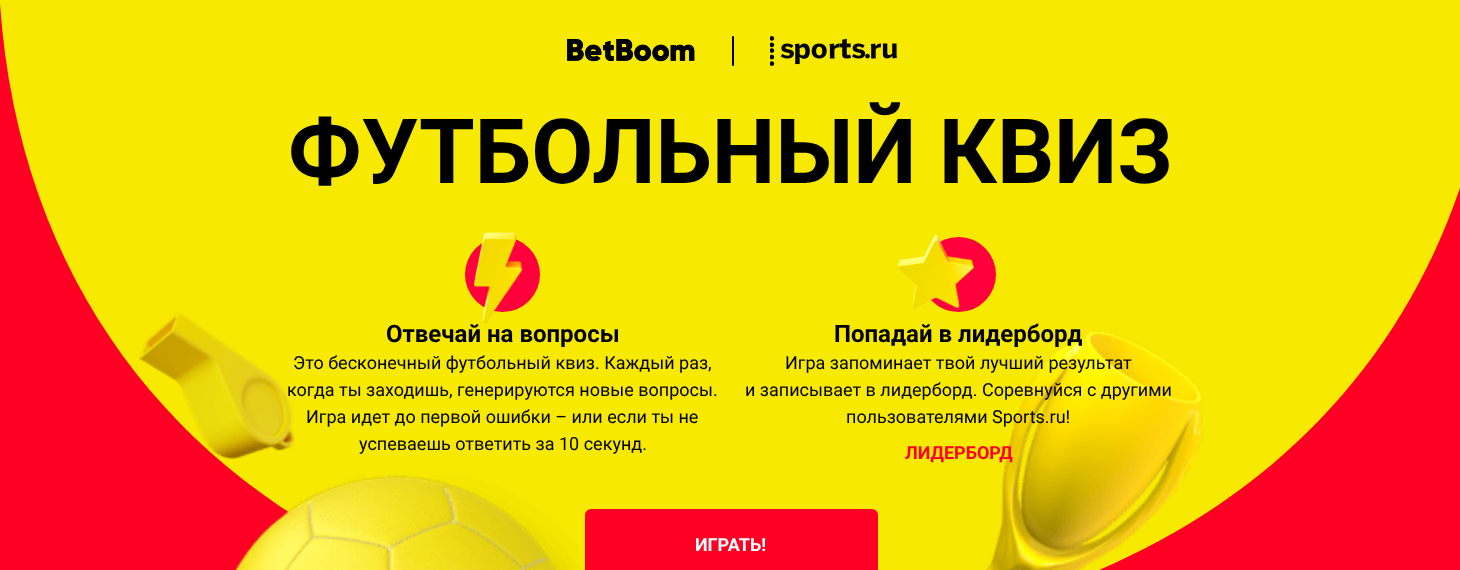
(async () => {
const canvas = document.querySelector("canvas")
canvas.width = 1460
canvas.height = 570
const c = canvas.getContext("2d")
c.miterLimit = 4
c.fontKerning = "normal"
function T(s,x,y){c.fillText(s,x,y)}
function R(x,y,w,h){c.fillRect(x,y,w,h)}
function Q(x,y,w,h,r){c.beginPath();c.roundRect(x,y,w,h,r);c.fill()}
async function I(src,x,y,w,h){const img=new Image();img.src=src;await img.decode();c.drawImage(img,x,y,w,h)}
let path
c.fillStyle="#ff0025"
R(0,0,1460,570)
c.fillStyle="#f8e900"
path = new Path2D("M748 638c415 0 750-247 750-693c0-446-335-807-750-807c-414 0-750 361-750 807c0 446 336 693 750 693z")
c.fill(path,"evenodd")
await I("1.png",567,39,128,23)
c.fillStyle="#000"
Q(732,36,2,30,1)
await I("2.png",770,36,127,30)
c.font="bold 90px Roboto"
T("ФУТБОЛЬНЫЙ КВИЗ",288,183)
await I("3.png",139,312,156,147)
c.fillStyle="#ff003c"
c.beginPath()
c.arc(502.5,274.5,37.5,0,7)
c.fill()
await I("4.png",474,232,49,92)
c.font="bold 24px Roboto"
c.fillStyle="#000"
T("Отвечай на вопросы",386,342)
c.font="18px Roboto"
T("Это бесконечный футбольный квиз. Каждый раз,",293,369)
T("когда ты заходишь, генерируются новые вопросы.",287,396)
T("Игра идет до первой ошибки – или если ты не",306,423)
T("успеваешь ответить за 10 секунд.",359,450)
c.fillStyle="#ff003c"
c.beginPath()
c.arc(958.5,274.5,37.5,0,7)
c.fill()
await I("5.png",897,234,78,75)
await I("7.png",986,330,217,240)
c.font="bold 24px Roboto"
c.fillStyle="#000"
T("Попадай в лидерборд",834,342)
c.font="18px Roboto"
T("Игра запоминает твой лучший результат",785,369)
T("и записывает в лидерборд. Соревнуйся с другими",745,396)
T("пользователями Sports.ru!",846,423)
c.font="bold 18px Roboto"
c.fillStyle="#ff0025"
T("ЛИДЕРБОРД",905,459)
Q(585,509,293,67,6)
c.fillStyle="#fff"
T("ИГРАТЬ!",695,551)
await I("6.png",234,475,347,95)
})()
